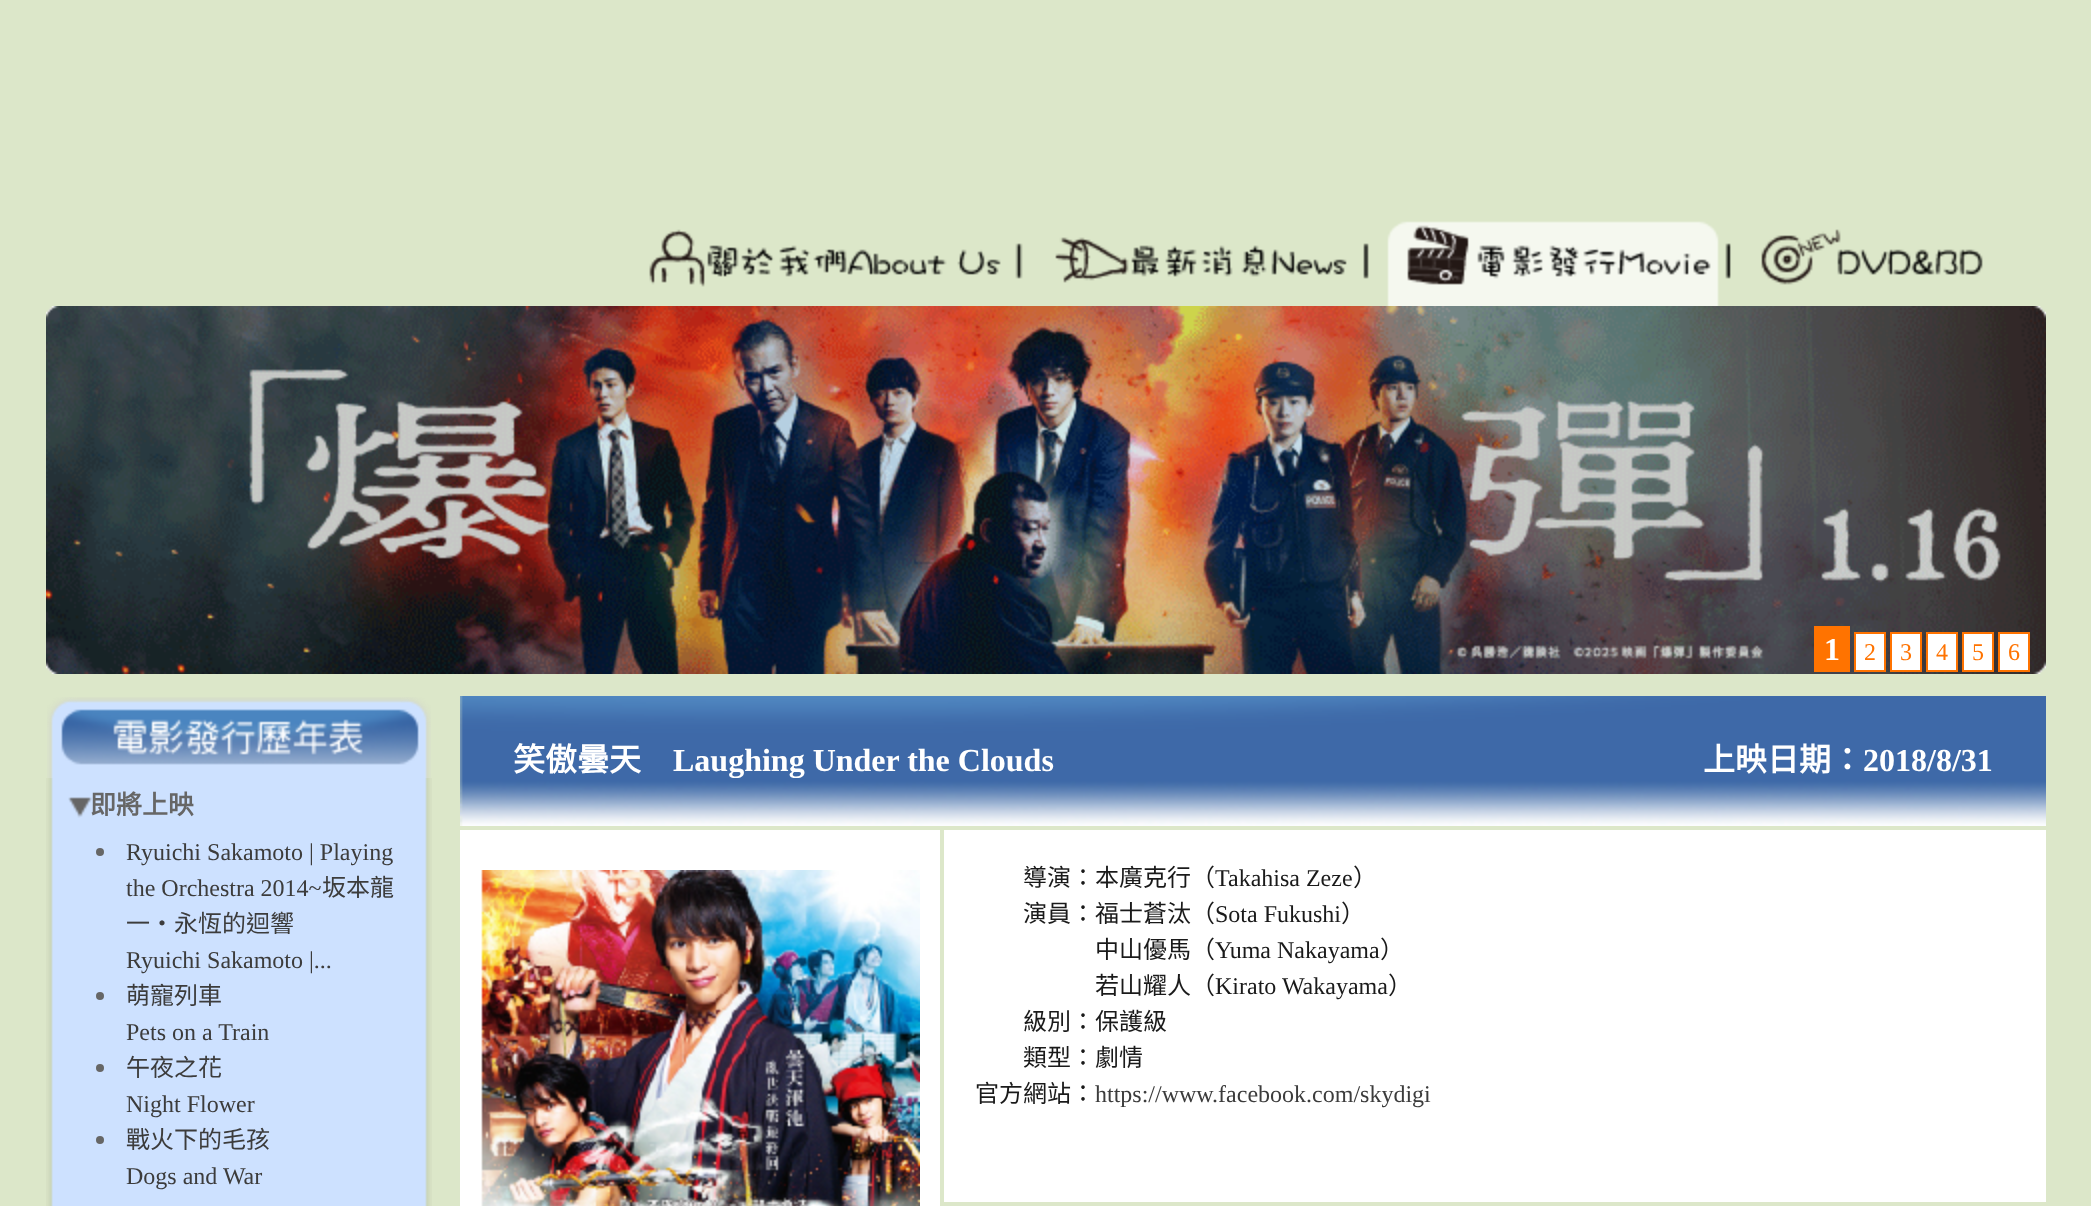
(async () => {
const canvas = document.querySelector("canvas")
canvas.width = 2091
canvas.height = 1206
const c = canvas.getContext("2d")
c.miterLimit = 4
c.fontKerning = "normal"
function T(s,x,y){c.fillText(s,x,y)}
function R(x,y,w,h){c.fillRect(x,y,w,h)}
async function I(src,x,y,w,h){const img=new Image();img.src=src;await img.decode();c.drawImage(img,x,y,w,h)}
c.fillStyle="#dce7c9"
R(0,0,2091,1206)
await I("1.png",649,229,374,58)
await I("2.png",1055,237,314,46)
await I("3.png",1387,221,344,85)
await I("4.png",1761,229,222,56)
await I("5.png",46,306,2000,368)
c.fillStyle="#ff7300"
R(1814,626,36,46)
c.font="bold 32px Liberation Serif"
c.fillStyle="#fff"
T("1",1824,660)
c.beginPath()
c.rect(1855,633,30,38)
c.fill()
c.strokeStyle="#ff7300"
c.lineWidth=2
c.stroke()
c.font="24px Liberation Serif"
c.fillStyle="#ff7300"
T("2",1864,660)
c.fillStyle="#fff"
c.beginPath()
c.rect(1891,633,30,38)
c.fill()
c.stroke()
c.fillStyle="#ff7300"
T("3",1900,660)
c.fillStyle="#fff"
c.beginPath()
c.rect(1927,633,30,38)
c.fill()
c.stroke()
c.fillStyle="#ff7300"
T("4",1936,660)
c.fillStyle="#fff"
c.beginPath()
c.rect(1963,633,30,38)
c.fill()
c.stroke()
c.fillStyle="#ff7300"
T("5",1972,660)
c.fillStyle="#fff"
c.beginPath()
c.rect(1999,633,30,38)
c.fill()
c.stroke()
c.fillStyle="#ff7300"
T("6",2008,660)
await I("6.png",47,697,384,81)
await I("7.png",46,778,386,428)
await I("8.png",68,797,24,21)
c.font="bold 26px Noto Sans CJK TC"
c.fillStyle="#666"
T("即將上映",90,814)
c.beginPath()
c.arc(100,852,4,0,7)
c.fill()
c.font="24px Liberation Serif"
c.fillStyle="#3c3c3c"
T("Ryuichi Sakamoto | Playing",126,860)
T("the Orchestra 2014~",126,896)
c.font="24px Noto Sans CJK TC"
T("坂本龍",322,896)
T("一・永恆的迴響",126,932)
c.font="24px Liberation Serif"
T("Ryuichi Sakamoto |...",126,968)
c.fillStyle="#666"
c.beginPath()
c.arc(100,996,4,0,7)
c.fill()
c.font="24px Noto Sans CJK TC"
c.fillStyle="#3c3c3c"
T("萌寵列車",126,1004)
c.font="24px Liberation Serif"
T("Pets on a Train",126,1040)
c.fillStyle="#666"
c.beginPath()
c.arc(100,1068,4,0,7)
c.fill()
c.font="24px Noto Sans CJK TC"
c.fillStyle="#3c3c3c"
T("午夜之花",126,1076)
c.font="24px Liberation Serif"
T("Night Flower",126,1112)
c.fillStyle="#666"
c.beginPath()
c.arc(100,1140,4,0,7)
c.fill()
c.font="24px Noto Sans CJK TC"
c.fillStyle="#3c3c3c"
T("戰火下的毛孩",126,1148)
c.font="24px Liberation Serif"
T("Dogs and War",126,1184)
c.fillStyle="#fff"
R(460,830,1586,376)
await I("9.png",460,696,1586,130)
c.font="bold 32px Noto Sans CJK TC"
T("笑傲曇天",513,771)
c.font="bold 32px Liberation Serif"
T("Laughing Under the Clouds",673,771)
c.font="bold 32px Noto Sans CJK TC"
T("上映日期：",1703,771)
c.font="bold 32px Liberation Serif"
T("2018/8/31",1863,771)
await I("10.png",481,870,439,336)
c.fillStyle="#dce7c9"
R(940,830,4,376)
c.font="24px Noto Sans CJK TC"
c.fillStyle="#1a1a1a"
T("導演：本廣克行（",1023,886)
c.font="24px Liberation Serif"
T("Takahisa Zeze",1215,886)
c.font="24px Noto Sans CJK TC"
T("）",1353,886)
T("演員：福士蒼汰（",1023,922)
c.font="24px Liberation Serif"
T("Sota Fukushi",1215,922)
c.font="24px Noto Sans CJK TC"
T("）",1341,922)
T("中山優馬（",1095,958)
c.font="24px Liberation Serif"
T("Yuma Nakayama",1215,958)
c.font="24px Noto Sans CJK TC"
T("）",1380,958)
T("若山耀人（",1095,994)
c.font="24px Liberation Serif"
T("Kirato Wakayama",1215,994)
c.font="24px Noto Sans CJK TC"
T("）",1388,994)
T("級別：保護級",1023,1030)
T("類型：劇情",1023,1066)
T("官方網站：",975,1102)
c.font="24px Liberation Serif"
c.fillStyle="#3c3c3c"
T("https://www.facebook.com/skydigi",1095,1102)
c.fillStyle="#dce7c9"
R(944,1202,1102,4)
})()
